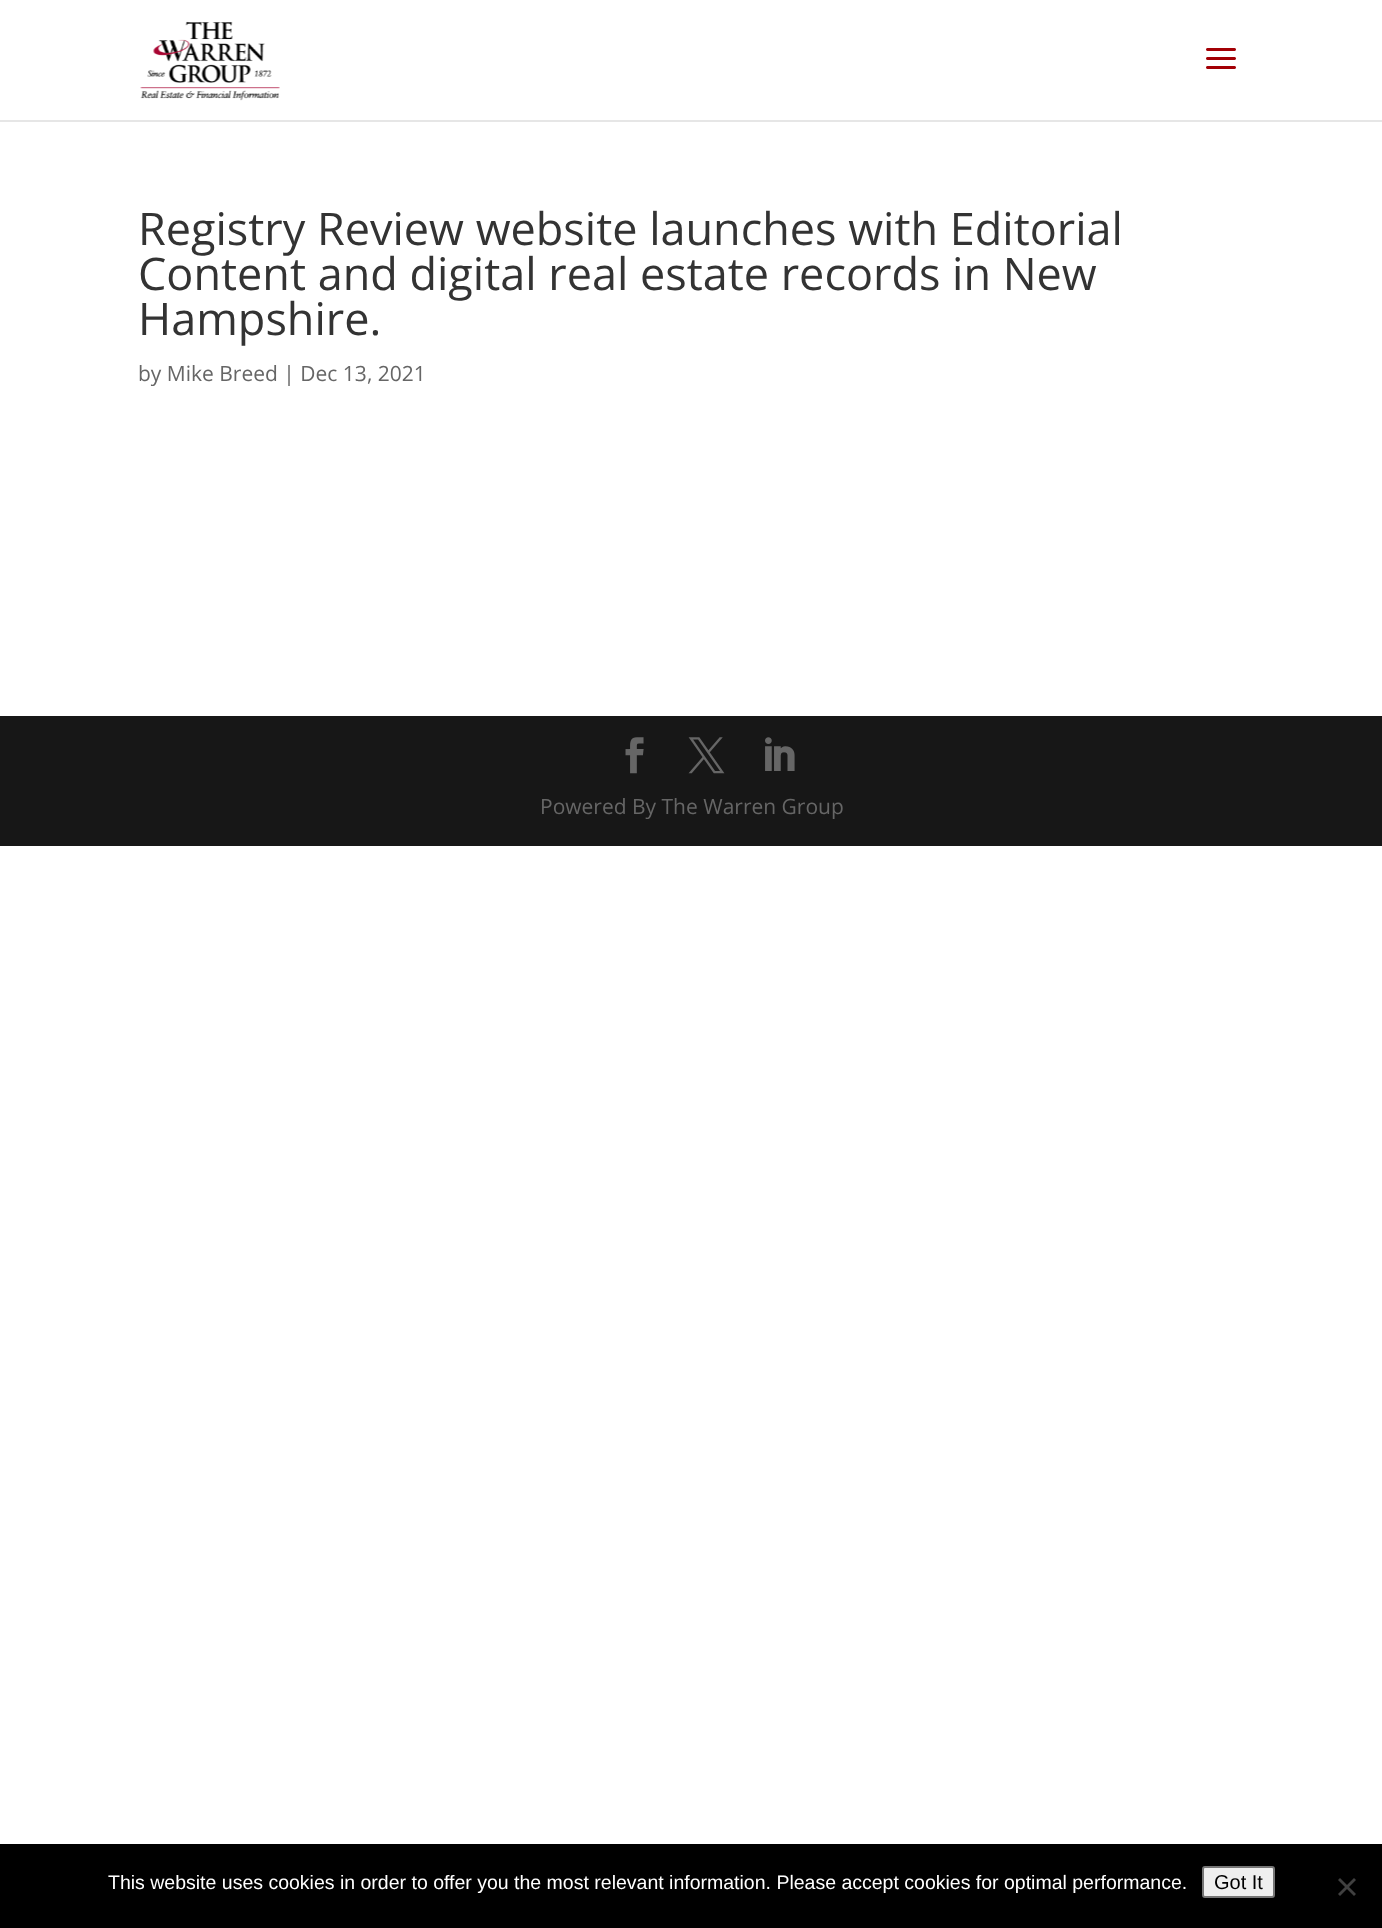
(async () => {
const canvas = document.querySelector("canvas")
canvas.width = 1382
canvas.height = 1928
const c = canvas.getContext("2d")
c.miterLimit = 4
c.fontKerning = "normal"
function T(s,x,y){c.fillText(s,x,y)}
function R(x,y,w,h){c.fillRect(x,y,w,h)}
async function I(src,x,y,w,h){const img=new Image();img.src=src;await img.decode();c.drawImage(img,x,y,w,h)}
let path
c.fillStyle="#fff"
R(0,0,1382,1928)
c.fillStyle="#e6e6e6"
R(0,120,1382,2)
await I("1.png",140,21,140,80)
await I("2.png",1206,48,30,21)
c.font="45px Open Sans"
c.fillStyle="#333"
T("Registry Review website launches with Editorial",138,245)
T("Content and digital real estate records in New",138,290)
T("Hampshire.",138,335)
c.font="21px Open Sans"
c.fillStyle="#666"
T("by Mike Breed | Dec 13, 2021",138,381)
c.fillStyle="#171717"
R(0,716,1382,130)
await I("3.png",625,737,19,37)
await I("4.png",688,737,37,37)
await I("5.png",765,737,30,34)
c.fillStyle="#666"
T("Powered By The Warren Group",540,814)
c.fillStyle="#000"
R(0,1844,1382,84)
c.font="19.5px Liberation Sans"
c.fillStyle="#fff"
T("This website uses cookies in order to offer you the most relevant information. Please accept cookies for optimal performance.",108,1889)
c.fillStyle="#efefef"
c.beginPath()
c.roundRect(1203,1867,71,30,2)
c.fill()
c.strokeStyle="#767676"
c.lineWidth=2
c.stroke()
c.font="20px Liberation Sans"
c.fillStyle="#000"
T("Got It",1214,1889)
c.fillStyle="#404040"
path = new Path2D("M1354 1878l2 2l-16 16l-2-2z")
c.fill(path)
path = new Path2D("M1338 1880l2-2l16 16l-2 2z")
c.fill(path)
})()
